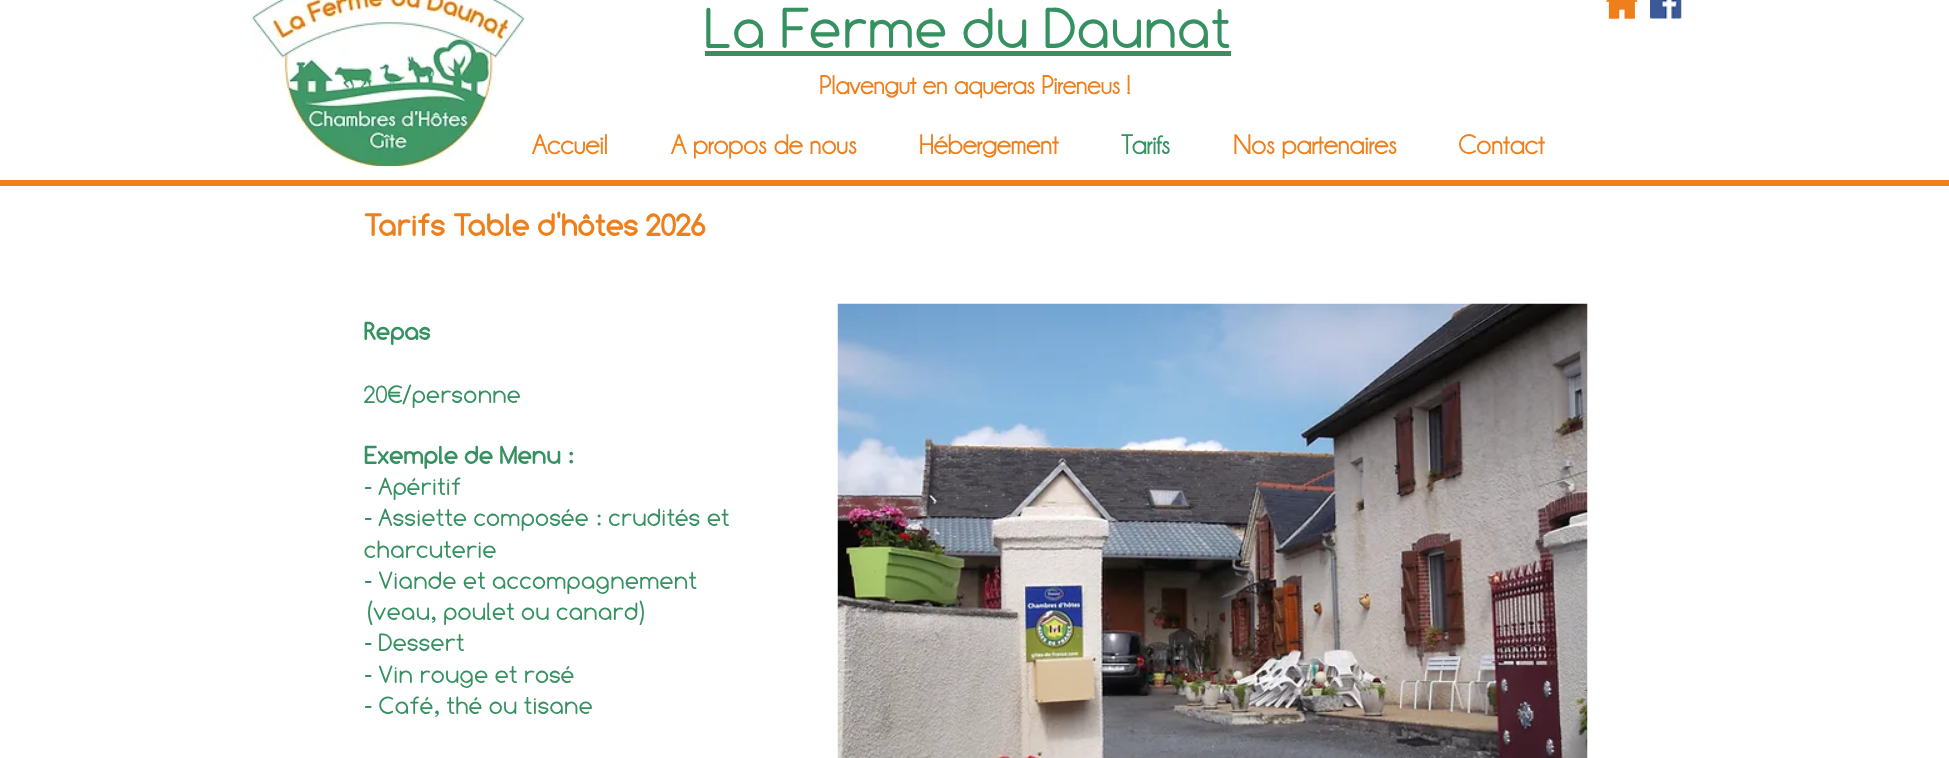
<svg xmlns="http://www.w3.org/2000/svg" width="1949" height="758" viewBox="0 0 1949 758">
  <style>
    .t1 { font: 57.5px Comfortaa; fill: #369161; }
    .t2 { font: bold 26.25px 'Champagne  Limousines'; fill: #ef7f1a; }
    .t3 { font: bold 27.5px 'Champagne  Limousines'; fill: #ef7f1a; }
    .t4 { font: bold 27.5px 'Champagne  Limousines'; fill: #369161; }
    .t5 { font: bold 31.25px Comfortaa; fill: #ef7f1a; }
    .t6 { font: bold 25px Comfortaa; fill: #369161; }
    .t7 { font: 25px Comfortaa; fill: #369161; }
  </style>
  <rect width="100%" height="100%" fill="#fff"/>
  <image x="252" y="0" width="273" height="166" href="images/1.png"/>
  <text x="705" y="48" class="t1">La Ferme du Daunat</text>
  <rect x="705" y="51" width="526" height="5" fill="#369161"/>
  <image x="1606" y="0" width="32" height="19" href="images/2.png"/>
  <image x="1650" y="0" width="32" height="19" href="images/3.png"/>
  <text x="819" y="94" class="t2">Plavengut en aqueras Pireneus !</text>
  <text x="532" y="154" class="t3">Accueil</text>
  <text x="671" y="154" class="t3">A propos de nous</text>
  <text x="919" y="154" class="t3">Hébergement</text>
  <text x="1121" y="154" class="t4">Tarifs</text>
  <text x="1233" y="154" class="t3">Nos partenaires</text>
  <text x="1458" y="154" class="t3">Contact</text>
  <rect x="0" y="180" width="1949" height="6" fill="#ef7f1a"/>
  <text x="364" y="236" class="t5">Tarifs Table d'hôtes 2026</text>
  <text x="364" y="340" class="t6">Repas</text>
  <text x="364" y="403" class="t7">20€/personne</text>
  <text x="364" y="464" class="t6">Exemple de Menu :</text>
  <text x="364" y="495" class="t7">- Apéritif</text>
  <text x="364" y="526" class="t7">- Assiette composée : crudités et</text>
  <text x="364" y="558" class="t7">charcuterie</text>
  <text x="364" y="589" class="t7">- Viande et accompagnement</text>
  <text x="364" y="620" class="t7">(veau, poulet ou canard)</text>
  <text x="364" y="651" class="t7">- Dessert</text>
  <text x="364" y="683" class="t7">- Vin rouge et rosé</text>
  <text x="364" y="714" class="t7">- Café, thé ou tisane</text>
  <image x="837" y="303" width="751" height="455" href="images/4.png"/>
</svg>
